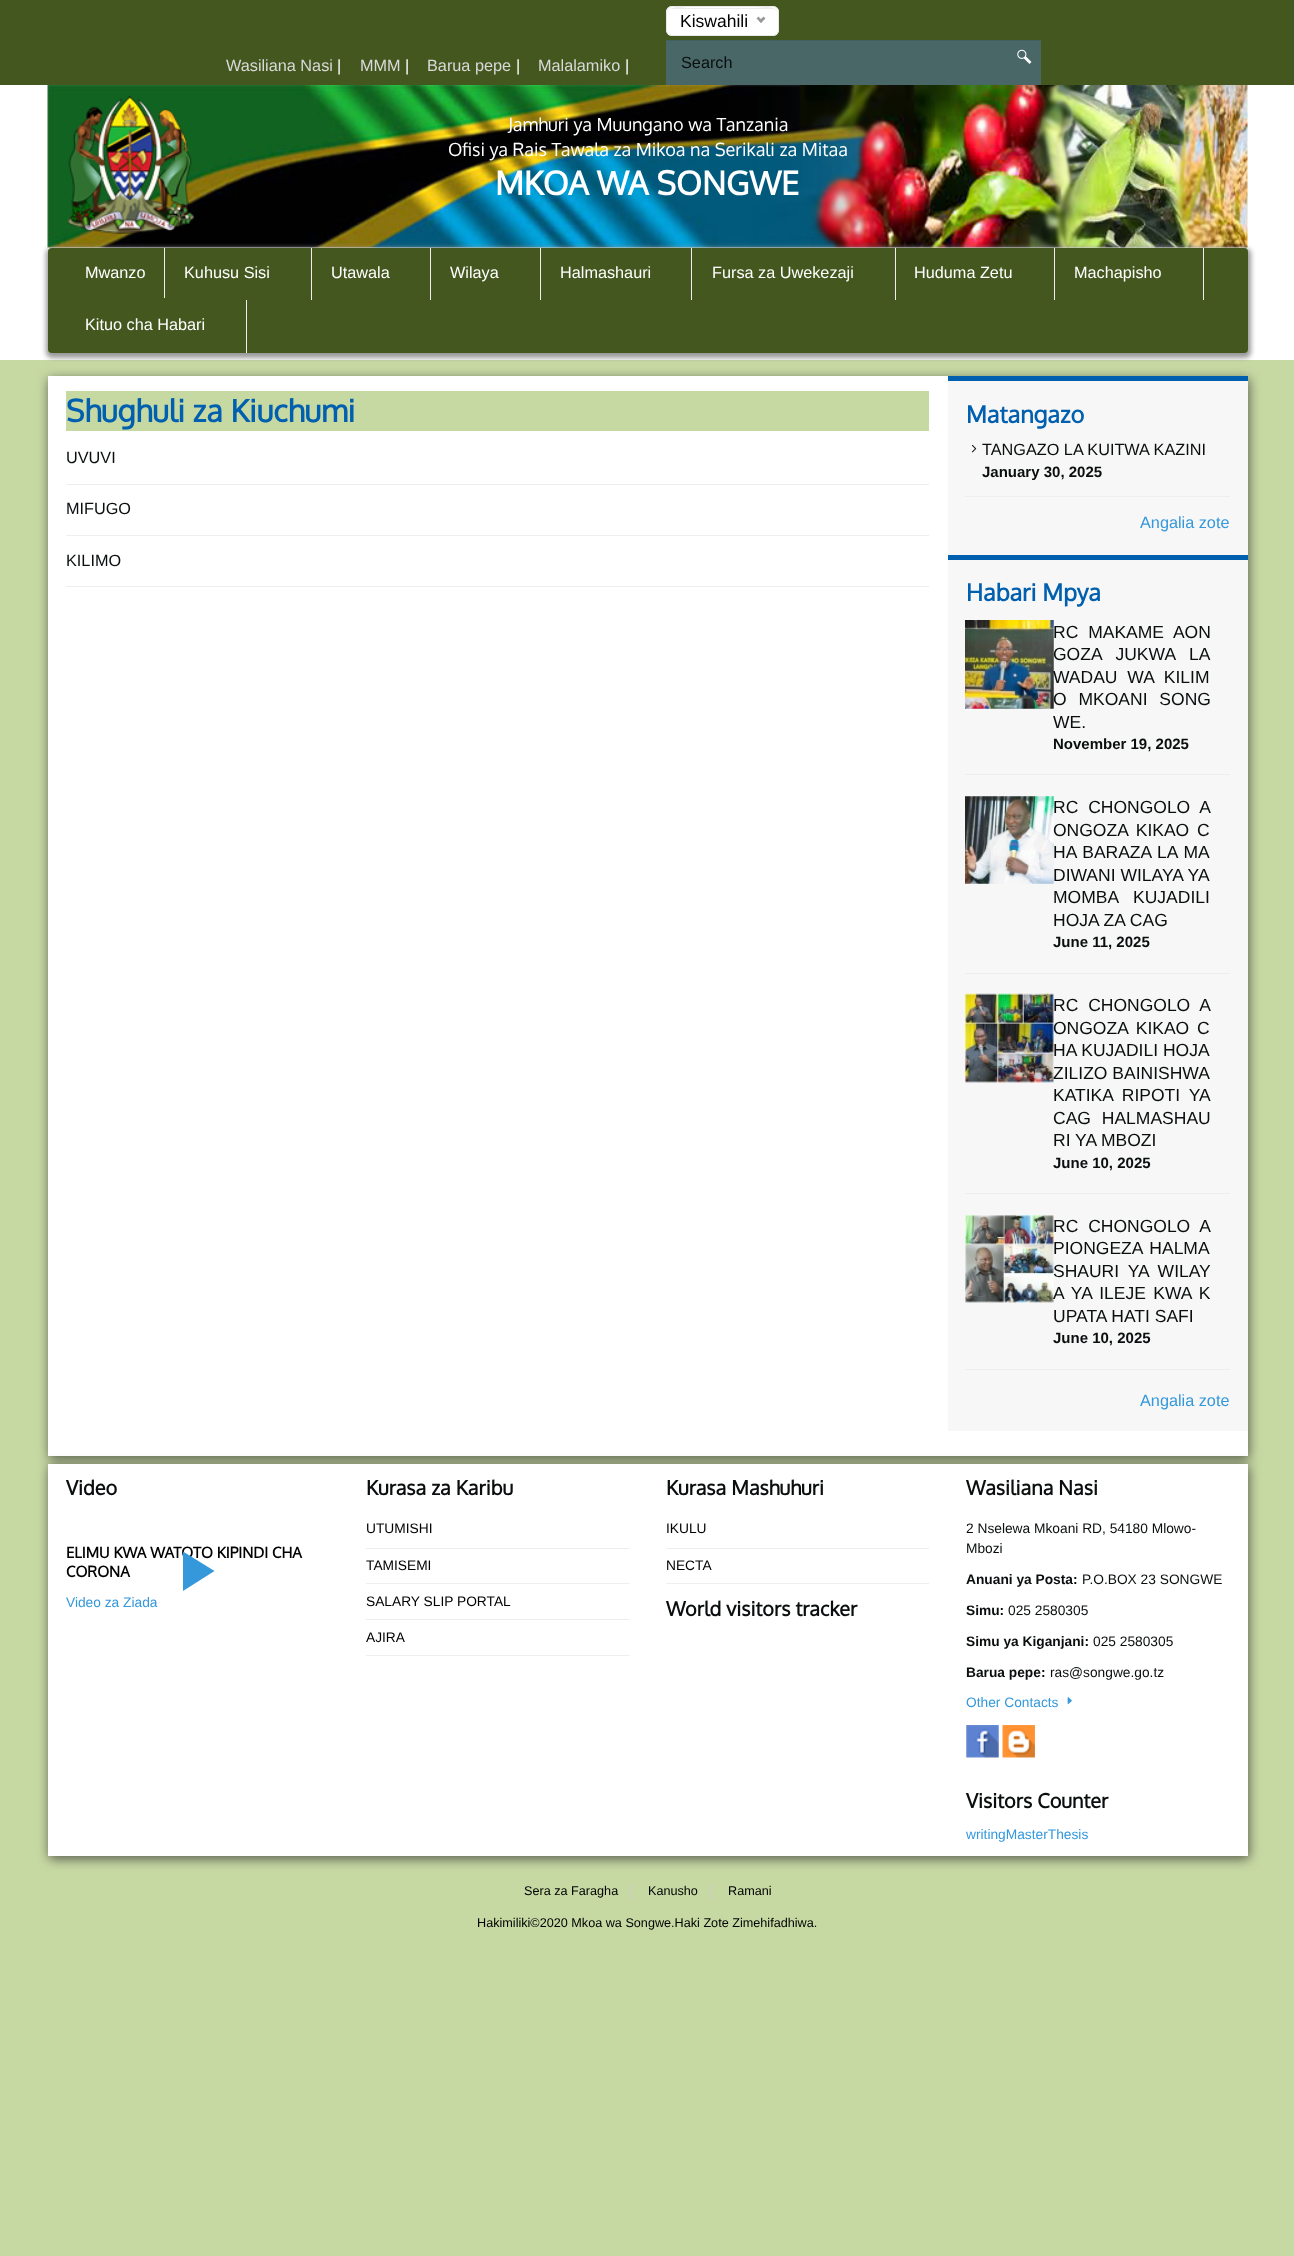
<svg xmlns="http://www.w3.org/2000/svg" width="1294" height="2256" viewBox="0 0 1294 2256">
  <style>
    .t1 { font: 17.5px Liberation Sans; fill: #000; }
    .t2 { font: 16.25px Liberation Sans; fill: #d9d9d9; }
    .t3 { font: 16.25px Liberation Sans; fill: #fff; }
    .t4 { font: 16.25px Liberation Sans; fill: #0a0e0e; }
    .t5 { font: 18.1px Oxygen; fill: #fff; }
    .t6 { font: bold 32.5px Oxygen; fill: #fff; }
    .t7 { font: bold 30.75px Oxygen; fill: #005faf; }
    .t8 { font: bold 23.5px Oxygen; fill: #005faf; }
    .t9 { font: bold 15px Liberation Sans; fill: #0a0e0e; }
    .t10 { font: 16.25px Liberation Sans; fill: #3498db; }
    .t11 { font: 17.5px Liberation Sans; fill: #0a0e0e; }
    .t12 { font: bold 19.9px Oxygen; fill: #0a0e0e; }
    .t13 { font: bold 15px Oxygen; fill: #000; }
    .t14 { font: 13.75px Liberation Sans; fill: #3498db; }
    .t15 { font: 13.75px Liberation Sans; fill: #000; }
    .t16 { font: 13.75px Liberation Sans; fill: #0a0e0e; }
    .t17 { font: bold 13.75px Liberation Sans; fill: #0a0e0e; }
    .t18 { font: 12.65px Liberation Sans; fill: #000; }
  </style>
  <rect width="100%" height="100%" fill="#c7d9a3"/>
  <rect x="0" y="0" width="1294" height="85" fill="#44571f"/>
  <rect x="666" y="6" width="113" height="30" rx="6" fill="#fff"/>
  <path d="M672 9H772C775 9 778 11 778 14C778 4 761 8 756 8H690C685 8 668 4 668 14C668 11 670 9 672 9Z" fill="#ececec"/>
  <rect x="666.5" y="6.5" width="112" height="29" rx="5.5" fill="none" stroke="#e8e8e8"/>
  <text x="680" y="27" class="t1">Kiswahili</text>
  <path d="M763.5 16.5L765.5 18.5L761 23L759 21Z" fill="#999"/>
  <path d="M758.5 16.5L762.5 21L761 23L756.5 18.5Z" fill="#999"/>
  <text x="226" y="71" class="t2">Wasiliana Nasi</text>
  <text x="337" y="71" class="t3">|</text>
  <text x="360" y="71" class="t2">MMM</text>
  <text x="405" y="71" class="t3">|</text>
  <text x="427" y="71" class="t2">Barua pepe</text>
  <text x="516" y="71" class="t3">|</text>
  <text x="538" y="71" class="t2">Malalamiko</text>
  <text x="625" y="71" class="t3">|</text>
  <rect x="666" y="41" width="375" height="44" fill="#4a6767"/>
  <rect x="666" y="40" width="375" height="1" fill="#445f5f"/>
  <text x="681" y="68" class="t4">Search</text>
  <image x="1017" y="49" width="15" height="15" href="images/1.png"/>
  <rect x="0" y="85" width="1294" height="275" fill="#fff"/>
  <image x="47" y="85" width="1201" height="163" href="images/2.png"/>
  <image x="67" y="96" width="127" height="138" href="images/3.png"/>
  <text x="508" y="131" class="t5">Jamhuri ya Muungano wa Tanzania</text>
  <text x="448" y="156" class="t5">Ofisi ya Rais Tawala za Mikoa na Serikali za Mitaa</text>
  <text x="495" y="195" class="t6">MKOA WA SONGWE</text>
  <rect x="46" y="248" width="1205" height="110" rx="6" fill="#999" filter="blur(2.5px)"/>
  <rect x="48" y="248" width="1200" height="105" rx="4" fill="#44571f"/>
  <rect x="164" y="248" width="1" height="50" fill="#eee"/>
  <text x="85" y="278" class="t3">Mwanzo</text>
  <rect x="311" y="248" width="1" height="52" fill="#eee"/>
  <text x="184" y="278" class="t3">Kuhusu Sisi</text>
  <rect x="430" y="248" width="1" height="52" fill="#eee"/>
  <text x="331" y="278" class="t3">Utawala</text>
  <rect x="540" y="248" width="1" height="52" fill="#eee"/>
  <text x="450" y="278" class="t3">Wilaya</text>
  <rect x="691" y="248" width="1" height="52" fill="#eee"/>
  <text x="560" y="278" class="t3">Halmashauri</text>
  <rect x="895" y="248" width="1" height="52" fill="#eee"/>
  <text x="712" y="278" class="t3">Fursa za Uwekezaji</text>
  <rect x="1054" y="248" width="1" height="52" fill="#eee"/>
  <text x="914" y="278" class="t3">Huduma Zetu</text>
  <rect x="1203" y="248" width="1" height="52" fill="#eee"/>
  <text x="1074" y="278" class="t3">Machapisho</text>
  <rect x="246" y="300" width="1" height="53" fill="#eee"/>
  <text x="85" y="330" class="t3">Kituo cha Habari</text>
  <rect x="49" y="379" width="1200" height="1080" fill="#323232bf" filter="blur(6px)"/>
  <rect x="48" y="376" width="1200" height="1080" fill="#fff"/>
  <rect x="66" y="391" width="863" height="40" fill="#c7d9a3"/>
  <text x="66" y="422" class="t7">Shughuli za Kiuchumi</text>
  <rect x="66" y="484" width="863" height="1" fill="#eee"/>
  <text x="66" y="463" class="t4">UVUVI</text>
  <rect x="66" y="535" width="863" height="1" fill="#eee"/>
  <text x="66" y="514" class="t4">MIFUGO</text>
  <rect x="66" y="586" width="863" height="1" fill="#eee"/>
  <text x="66" y="566" class="t4">KILIMO</text>
  <rect x="948" y="381" width="300" height="1050" fill="#f7f7f7"/>
  <rect x="948" y="376" width="300" height="5" fill="#005faf"/>
  <text x="966" y="423" class="t8">Matangazo</text>
  <rect x="965" y="496" width="265" height="1" fill="#eee"/>
  <image x="971" y="444" width="6" height="9" href="images/4.png"/>
  <text x="982" y="455" class="t4">TANGAZO LA KUITWA KAZINI</text>
  <text x="982" y="477" class="t9">January 30, 2025</text>
  <text x="1140" y="528" class="t10">Angalia zote</text>
  <rect x="948" y="555" width="300" height="5" fill="#005faf"/>
  <text x="966" y="601" class="t8">Habari Mpya</text>
  <rect x="965" y="774" width="265" height="1" fill="#eee"/>
  <image x="965" y="620" width="89" height="89" href="images/5.png"/>
  <text x="1053" y="638" word-spacing="5" class="t11">RC MAKAME AON</text>
  <text x="1053" y="660" word-spacing="9" class="t11">GOZA JUKWA LA</text>
  <text x="1053" y="683" word-spacing="5" class="t11">WADAU WA KILIM</text>
  <text x="1053" y="705" word-spacing="7" class="t11">O MKOANI SONG</text>
  <text x="1053" y="728" class="t11">WE.</text>
  <text x="1053" y="749" class="t9">November 19, 2025</text>
  <rect x="965" y="973" width="265" height="1" fill="#eee"/>
  <image x="965" y="796" width="89" height="88" href="images/6.png"/>
  <text x="1053" y="813" word-spacing="5" class="t11">RC CHONGOLO A</text>
  <text x="1053" y="836" word-spacing="3" class="t11">ONGOZA KIKAO C</text>
  <text x="1053" y="858" word-spacing="1" class="t11">HA BARAZA LA MA</text>
  <text x="1053" y="881" class="t11">DIWANI WILAYA YA</text>
  <text x="1053" y="903" word-spacing="10" class="t11">MOMBA KUJADILI</text>
  <text x="1053" y="926" class="t11">HOJA ZA CAG</text>
  <text x="1053" y="947" class="t9">June 11, 2025</text>
  <rect x="965" y="1193" width="265" height="1" fill="#eee"/>
  <image x="965" y="993" width="89" height="90" href="images/7.png"/>
  <text x="1053" y="1011" word-spacing="5" class="t11">RC CHONGOLO A</text>
  <text x="1053" y="1034" word-spacing="3" class="t11">ONGOZA KIKAO C</text>
  <text x="1053" y="1056" class="t11">HA KUJADILI HOJA</text>
  <text x="1053" y="1079" class="t11">ZILIZO BAINISHWA</text>
  <text x="1053" y="1101" word-spacing="4" class="t11">KATIKA RIPOTI YA</text>
  <text x="1053" y="1124" word-spacing="6" class="t11">CAG HALMASHAU</text>
  <text x="1053" y="1146" class="t11">RI YA MBOZI</text>
  <text x="1053" y="1168" class="t9">June 10, 2025</text>
  <rect x="965" y="1369" width="265" height="1" fill="#eee"/>
  <image x="965" y="1215" width="89" height="88" href="images/8.png"/>
  <text x="1053" y="1232" word-spacing="5" class="t11">RC CHONGOLO A</text>
  <text x="1053" y="1254" word-spacing="2" class="t11">PIONGEZA HALMA</text>
  <text x="1053" y="1277" word-spacing="4" class="t11">SHAURI YA WILAY</text>
  <text x="1053" y="1299" word-spacing="2.5" class="t11">A YA ILEJE KWA K</text>
  <text x="1053" y="1322" class="t11">UPATA HATI SAFI</text>
  <text x="1053" y="1343" class="t9">June 10, 2025</text>
  <text x="1140" y="1406" class="t10">Angalia zote</text>
  <rect x="49" y="1466" width="1200" height="393" fill="#323232bf" filter="blur(6px)"/>
  <rect x="48" y="1464" width="1200" height="392" fill="#fff"/>
  <text x="66" y="1495" class="t12">Video</text>
  <text x="66" y="1558" class="t13">ELIMU KWA WATOTO KIPINDI CHA</text>
  <text x="66" y="1577" class="t13">CORONA</text>
  <path d="M183 1551.5V1591L214.5 1571Z" fill="#3498db"/>
  <text x="66" y="1607" class="t14">Video za Ziada</text>
  <text x="366" y="1495" class="t12">Kurasa za Karibu</text>
  <rect x="366" y="1548" width="263" height="1" fill="#eee"/>
  <text x="366" y="1533" class="t15">UTUMISHI</text>
  <rect x="366" y="1583" width="263" height="1" fill="#eee"/>
  <text x="366" y="1570" class="t15">TAMISEMI</text>
  <rect x="366" y="1619" width="263" height="1" fill="#eee"/>
  <text x="366" y="1606" class="t15">SALARY SLIP PORTAL</text>
  <rect x="366" y="1655" width="263" height="1" fill="#eee"/>
  <text x="366" y="1642" class="t15">AJIRA</text>
  <text x="666" y="1495" class="t12">Kurasa Mashuhuri</text>
  <rect x="666" y="1548" width="263" height="1" fill="#eee"/>
  <text x="666" y="1533" class="t15">IKULU</text>
  <rect x="666" y="1583" width="263" height="1" fill="#eee"/>
  <text x="666" y="1570" class="t15">NECTA</text>
  <text x="666" y="1616" class="t12">World visitors tracker</text>
  <text x="966" y="1495" class="t12">Wasiliana Nasi</text>
  <text x="966" y="1533" class="t16">2 Nselewa Mkoani RD, 54180 Mlowo-</text>
  <text x="966" y="1553" class="t16">Mbozi</text>
  <text x="966" y="1584" class="t17">Anuani ya Posta:</text>
  <text x="1082" y="1584" class="t16">P.O.BOX 23 SONGWE</text>
  <text x="966" y="1615" class="t17">Simu:</text>
  <text x="1008" y="1615" class="t16">025 2580305</text>
  <text x="966" y="1646" class="t17">Simu ya Kiganjani:</text>
  <text x="1093" y="1646" class="t16">025 2580305</text>
  <text x="966" y="1677" class="t17">Barua pepe:</text>
  <text x="1050" y="1677" class="t16">ras@songwe.go.tz</text>
  <text x="966" y="1707" class="t14">Other Contacts</text>
  <image x="1067" y="1697" width="5" height="7" href="images/9.png"/>
  <image x="966" y="1725" width="33" height="33" href="images/10.png"/>
  <image x="1002" y="1725" width="33" height="33" href="images/11.png"/>
  <text x="966" y="1808" class="t12">Visitors Counter</text>
  <text x="966" y="1839" class="t14">writingMasterThesis</text>
  <rect x="630" y="1883" width="1" height="17" fill="#ccc"/>
  <text x="524" y="1895" class="t18">Sera za Faragha</text>
  <rect x="710" y="1883" width="1" height="17" fill="#ccc"/>
  <text x="648" y="1895" class="t18">Kanusho</text>
  <text x="728" y="1895" class="t18">Ramani</text>
  <text x="477" y="1927" class="t18">Hakimiliki©2020 Mkoa wa Songwe.Haki Zote Zimehifadhiwa.</text>
</svg>
